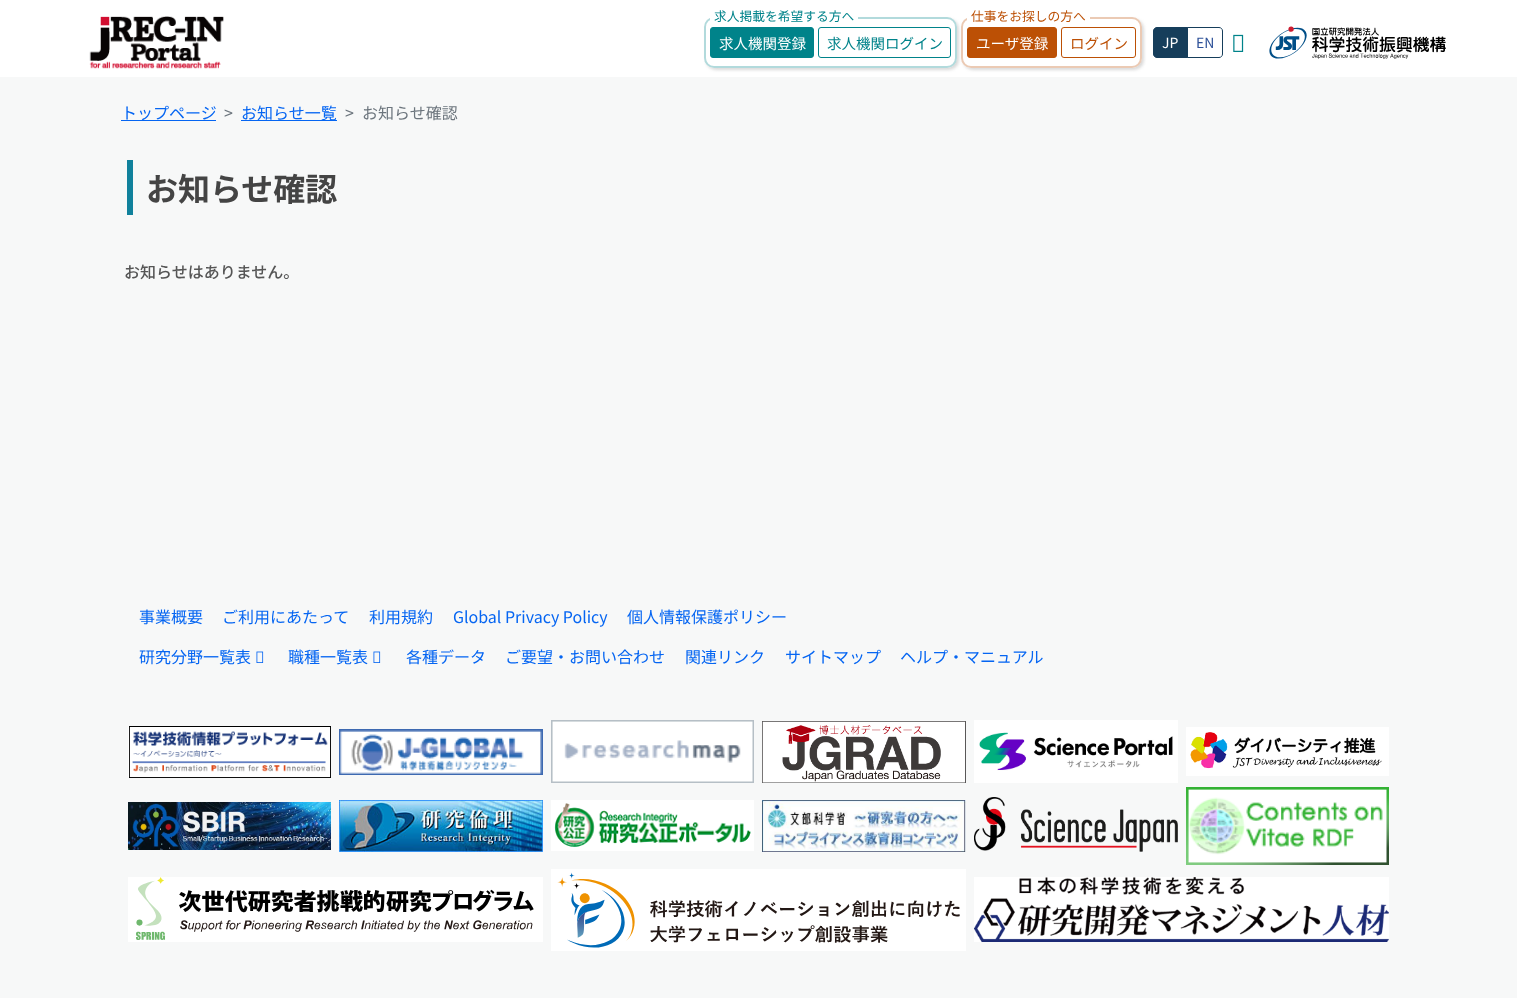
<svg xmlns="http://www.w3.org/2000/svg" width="1517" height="998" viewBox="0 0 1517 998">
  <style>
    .t1 { font: 12.75px Noto Sans JP; fill: #00838a; }
    .t2 { font: 14.5px Noto Sans JP; fill: #fff; }
    .t3 { font: 14.5px Noto Sans JP; fill: #00838a; }
    .t4 { font: 12.75px Noto Sans JP; fill: #bc5005; }
    .t5 { font: 14.5px Noto Sans JP; fill: #bc5005; }
    .t6 { font: 14px Noto Sans JP; fill: #fff; }
    .t7 { font: 14px Noto Sans JP; fill: #2e5299; }
    .t8 { font: 16px Noto Sans JP; fill: #0565f2; }
    .t9 { font: 16px Noto Sans JP; fill: #6c757d; }
    .t10 { font: bold 32px Noto Sans JP; fill: #444; }
    .t11 { font: 500 16px Noto Sans JP; fill: #555; }
  </style>
  <defs>
    <clipPath id="clip1"><path d="M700 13H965V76H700ZM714 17H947C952.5 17 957 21.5 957 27V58C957 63.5 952.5 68 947 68H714C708.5 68 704 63.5 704 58V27C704 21.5 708.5 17 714 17Z" clip-rule="evenodd"/></clipPath>
    <clipPath id="clip2"><path d="M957 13H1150V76H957ZM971 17H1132C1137.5 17 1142 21.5 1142 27V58C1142 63.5 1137.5 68 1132 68H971C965.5 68 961 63.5 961 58V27C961 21.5 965.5 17 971 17Z" clip-rule="evenodd"/></clipPath>
  </defs>
  <rect width="100%" height="100%" fill="#f7f8f8"/>
  <rect x="0" y="0" width="1517" height="77" fill="#fff"/>
  <image x="89" y="16" width="135" height="53" href="images/1.png"/>
  <g clip-path="url(#clip1)">
    <rect x="706" y="19" width="253" height="51" rx="10" fill="#aaaaaa70" filter="blur(1.5px)"/>
  </g>
  <rect x="705" y="18" width="251" height="49" rx="9" fill="none" stroke="#00838a4d" stroke-width="2"/>
  <rect x="710" y="17" width="148" height="3" fill="#fff"/>
  <text x="714" y="21" class="t1">求人掲載を希望する方へ</text>
  <rect x="710.5" y="27.5" width="103" height="30" rx="2.5" fill="#00838a" stroke="#00838a"/>
  <text x="719" y="49" class="t2">求人機関登録</text>
  <rect x="818.5" y="27.5" width="132" height="30" rx="2.5" fill="none" stroke="#00838a"/>
  <text x="827" y="49" class="t3">求人機関ログイン</text>
  <g clip-path="url(#clip2)">
    <rect x="963" y="19" width="181" height="51" rx="10" fill="#aaaaaa70" filter="blur(1.5px)"/>
  </g>
  <rect x="962" y="18" width="179" height="49" rx="9" fill="none" stroke="#bc50054d" stroke-width="2"/>
  <rect x="967" y="17" width="123" height="3" fill="#fff"/>
  <text x="971" y="21" class="t4">仕事をお探しの方へ</text>
  <rect x="967.5" y="27.5" width="89" height="30" rx="2.5" fill="#bc5005" stroke="#bc5005"/>
  <text x="976" y="49" class="t2">ユーザ登録</text>
  <rect x="1061.5" y="27.5" width="74" height="30" rx="2.5" fill="none" stroke="#bc5005"/>
  <text x="1070" y="49" class="t5">ログイン</text>
  <path d="M1187.5 27.5H1219C1221 27.5 1222.5 29 1222.5 31V54C1222.5 56 1221 57.5 1219 57.5H1187.5Z" fill="none" stroke="#163e5b"/>
  <path d="M1157 27.5H1187.5V57.5H1157C1155 57.5 1153.5 56 1153.5 54V31C1153.5 29 1155 27.5 1157 27.5Z" fill="#163e5b" stroke="#163e5b"/>
  <text x="1162" y="48" class="t6">JP</text>
  <text x="1196" y="48" class="t7">EN</text>
  <image x="1233" y="34" width="11" height="18" href="images/2.png"/>
  <image x="1269" y="26" width="177" height="33" href="images/3.png"/>
  <rect x="121" y="120" width="95" height="1" fill="#0565f2"/>
  <text x="121" y="119" class="t8">トップページ</text>
  <text x="224" y="119" class="t9">&gt;</text>
  <rect x="241" y="120" width="96" height="1" fill="#0565f2"/>
  <text x="241" y="119" class="t8">お知らせ一覧</text>
  <text x="345" y="119" class="t9">&gt;</text>
  <text x="362" y="119" class="t9">お知らせ確認</text>
  <rect x="127" y="160" width="6" height="55" fill="#10819c"/>
  <text x="146" y="201" class="t10">お知らせ確認</text>
  <text x="124" y="278" class="t11">お知らせはありません。</text>
  <text x="139" y="623" class="t8">事業概要</text>
  <text x="222" y="623" class="t8">ご利用にあたって</text>
  <text x="369" y="623" class="t8">利用規約</text>
  <text x="453" y="623" class="t8">Global Privacy Policy</text>
  <text x="627" y="623" class="t8">個人情報保護ポリシー</text>
  <text x="139" y="663" class="t8">研究分野一覧表</text>
  <image x="256" y="651" width="8" height="12" href="images/4.png"/>
  <text x="288" y="663" class="t8">職種一覧表</text>
  <image x="373" y="651" width="8" height="12" href="images/4.png"/>
  <text x="406" y="663" class="t8">各種データ</text>
  <text x="505" y="663" class="t8">ご要望・お問い合わせ</text>
  <text x="685" y="663" class="t8">関連リンク</text>
  <text x="785" y="663" class="t8">サイトマップ</text>
  <text x="900" y="663" class="t8">ヘルプ・マニュアル</text>
  <image x="128" y="726" width="203" height="52" href="images/5.png"/>
  <image x="339" y="729" width="204" height="46" href="images/6.png"/>
  <image x="551" y="720" width="203" height="63" href="images/7.png"/>
  <image x="762" y="721" width="204" height="62" href="images/8.png"/>
  <image x="974" y="720" width="204" height="63" href="images/9.png"/>
  <image x="1186" y="727" width="203" height="49" href="images/10.png"/>
  <image x="128" y="802" width="203" height="48" href="images/11.png"/>
  <image x="339" y="800" width="204" height="52" href="images/12.png"/>
  <image x="551" y="800" width="203" height="51" href="images/13.png"/>
  <image x="762" y="800" width="204" height="52" href="images/14.png"/>
  <image x="974" y="797" width="204" height="55" href="images/15.png"/>
  <image x="1186" y="787" width="203" height="78" href="images/16.png"/>
  <rect x="128" y="877" width="415" height="65" fill="#fff"/>
  <image x="136" y="877" width="398" height="63" href="images/17.png"/>
  <rect x="551" y="869" width="415" height="82" fill="#fff"/>
  <image x="557" y="872" width="403" height="76" href="images/18.png"/>
  <rect x="974" y="877" width="415" height="65" fill="#fff"/>
  <image x="974" y="877" width="415" height="65" href="images/19.png"/>
</svg>
